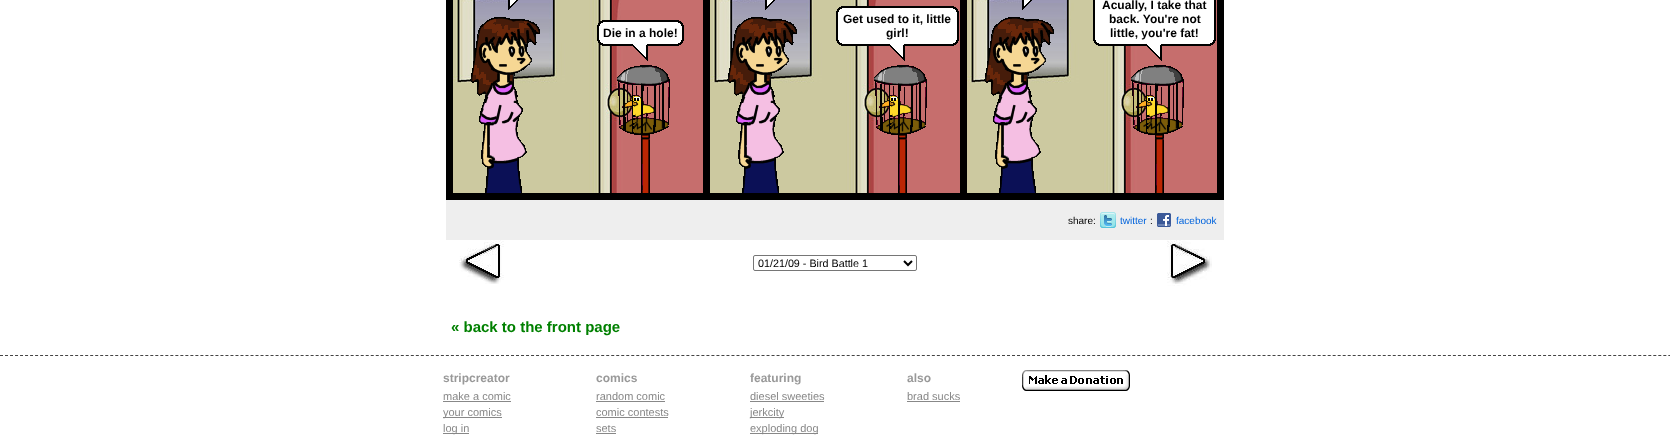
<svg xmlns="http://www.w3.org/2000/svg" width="1670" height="439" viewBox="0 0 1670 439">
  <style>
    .t1 { font: bold 12px Liberation Sans; fill: #000; }
    .t2 { font: 10px Liberation Sans; fill: #000; }
    .t3 { font: 10px Liberation Sans; fill: #0063dc; }
    .t4 { font: 10.75px Liberation Sans; fill: #000; }
    .t5 { font: bold 15px Liberation Sans; fill: #008000; }
    .t6 { font: bold 12px Liberation Sans; fill: #999; }
    .t7 { font: 11px Liberation Sans; fill: #888; }
  </style>
  <rect width="100%" height="100%" fill="#fff"/>
  <rect x="446" y="0" width="778" height="200" fill="#000"/>
  <image x="453" y="0" width="250" height="193" href="images/1.png"/>
  <image x="508" y="0" width="10" height="10" href="images/2.png"/>
  <image x="470" y="17" width="70" height="176" href="images/3.png"/>
  <image x="597" y="20" width="6" height="6" href="images/4.png"/>
  <image x="603" y="20" width="75" height="6" href="images/5.png"/>
  <image x="678" y="20" width="6" height="6" href="images/6.png"/>
  <image x="597" y="26" width="6" height="14" href="images/7.png"/>
  <rect x="603" y="26" width="75" height="14" fill="#fff"/>
  <text x="603" y="37" class="t1">Die in a hole!</text>
  <image x="678" y="26" width="6" height="14" href="images/8.png"/>
  <image x="597" y="40" width="6" height="6" href="images/9.png"/>
  <image x="603" y="40" width="75" height="6" href="images/10.png"/>
  <image x="678" y="40" width="6" height="6" href="images/11.png"/>
  <image x="633" y="44" width="15" height="17" href="images/12.png"/>
  <image x="617" y="65" width="53" height="128" href="images/13.png"/>
  <image x="710" y="0" width="250" height="193" href="images/1.png"/>
  <image x="765" y="0" width="10" height="10" href="images/2.png"/>
  <image x="727" y="17" width="70" height="176" href="images/3.png"/>
  <image x="836" y="6" width="6" height="6" href="images/14.png"/>
  <image x="842" y="6" width="111" height="6" href="images/15.png"/>
  <image x="953" y="6" width="6" height="6" href="images/6.png"/>
  <image x="836" y="12" width="6" height="28" href="images/16.png"/>
  <rect x="842" y="12" width="111" height="28" fill="#fff"/>
  <text x="843" y="23" class="t1">Get used to it, little</text>
  <text x="886" y="37" class="t1">girl!</text>
  <image x="953" y="12" width="6" height="28" href="images/17.png"/>
  <image x="836" y="40" width="6" height="6" href="images/18.png"/>
  <image x="842" y="40" width="111" height="6" href="images/19.png"/>
  <image x="953" y="40" width="6" height="6" href="images/11.png"/>
  <image x="890" y="44" width="15" height="17" href="images/12.png"/>
  <image x="874" y="65" width="53" height="128" href="images/13.png"/>
  <image x="967" y="0" width="250" height="193" href="images/1.png"/>
  <image x="1022" y="0" width="10" height="10" href="images/2.png"/>
  <image x="984" y="17" width="70" height="176" href="images/3.png"/>
  <image x="1093" y="0" width="6" height="40" href="images/20.png"/>
  <rect x="1099" y="0" width="111" height="40" fill="#fff"/>
  <text x="1102" y="9" class="t1">Acually, I take that</text>
  <text x="1109" y="23" class="t1">back. You're not</text>
  <text x="1110" y="37" class="t1">little, you're fat!</text>
  <image x="1210" y="0" width="6" height="40" href="images/21.png"/>
  <image x="1093" y="40" width="6" height="6" href="images/18.png"/>
  <image x="1099" y="40" width="111" height="6" href="images/19.png"/>
  <image x="1210" y="40" width="6" height="6" href="images/11.png"/>
  <image x="1147" y="44" width="15" height="17" href="images/12.png"/>
  <image x="1131" y="65" width="53" height="128" href="images/13.png"/>
  <rect x="446" y="200" width="778" height="40" fill="#eee"/>
  <text x="1068" y="224" class="t2">share:</text>
  <image x="1100" y="212" width="16" height="16" href="images/22.png"/>
  <text x="1120" y="224" class="t3">twitter</text>
  <text x="1150" y="224" class="t2">:</text>
  <image x="1157" y="213" width="14" height="14" href="images/23.png"/>
  <text x="1176" y="224" class="t3">facebook</text>
  <image x="459" y="240" width="45" height="44" href="images/24.png"/>
  <rect x="753.5" y="255.5" width="163" height="15" rx="1.5" fill="none" stroke="#767676"/>
  <path d="M904 261L908 265L912 261" fill="none" stroke="#000" stroke-width="2"/>
  <text x="758" y="267" class="t4">01/21/09 - Bird Battle 1</text>
  <image x="1167" y="240" width="45" height="46" href="images/25.png"/>
  <text x="451" y="332" class="t5">« back to the front page</text>
  <path d="M0 355.5H1670" fill="none" stroke="#444" stroke-dasharray="3 2.01"/>
  <text x="443" y="382" class="t6">stripcreator</text>
  <text x="443" y="400" class="t7">make a comic</text>
  <rect x="443" y="401" width="68" height="1" fill="#888"/>
  <rect x="443" y="417" width="59" height="1" fill="#888"/>
  <text x="443" y="416" class="t7">your comics</text>
  <rect x="443" y="433" width="26" height="1" fill="#888"/>
  <text x="443" y="432" class="t7">log in</text>
  <text x="596" y="382" class="t6">comics</text>
  <text x="596" y="400" class="t7">random comic</text>
  <rect x="596" y="401" width="69" height="1" fill="#888"/>
  <text x="596" y="416" class="t7">comic contests</text>
  <rect x="596" y="417" width="72" height="1" fill="#888"/>
  <text x="596" y="432" class="t7">sets</text>
  <rect x="596" y="433" width="20" height="1" fill="#888"/>
  <text x="750" y="382" class="t6">featuring</text>
  <text x="750" y="400" class="t7">diesel sweeties</text>
  <rect x="750" y="401" width="74" height="1" fill="#888"/>
  <rect x="750" y="417" width="34" height="1" fill="#888"/>
  <text x="750" y="416" class="t7">jerkcity</text>
  <rect x="750" y="433" width="68" height="1" fill="#888"/>
  <text x="750" y="432" class="t7">exploding dog</text>
  <text x="907" y="382" class="t6">also</text>
  <text x="907" y="400" class="t7">brad sucks</text>
  <rect x="907" y="401" width="53" height="1" fill="#888"/>
  <image x="1022" y="370" width="108" height="21" href="images/26.png"/>
</svg>
